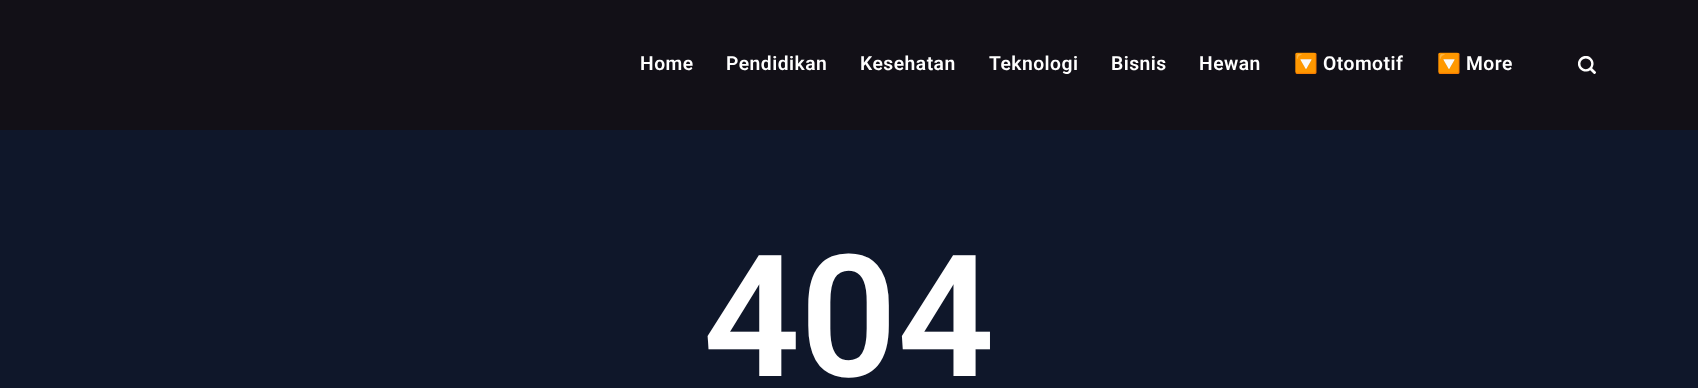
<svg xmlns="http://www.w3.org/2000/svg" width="1698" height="388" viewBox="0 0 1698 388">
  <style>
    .t1 { font: 600 19.25px 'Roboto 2'; letter-spacing: 0.5px; fill: #fff; }
    .t2 { font: bold 19.25px Noto Color Emoji; letter-spacing: 0.5px; fill: #fff; }
    .t3 { font: 600 170px Roboto; fill: #fff; }
  </style>
  <rect width="100%" height="100%" fill="#0f172a"/>
  <rect x="0" y="0" width="1698" height="130" fill="#121017"/>
  <text x="640" y="70" class="t1">Home</text>
  <text x="726" y="70" class="t1">Pendidikan</text>
  <text x="860" y="70" class="t1">Kesehatan</text>
  <text x="989" y="70" class="t1">Teknologi</text>
  <text x="1111" y="70" class="t1">Bisnis</text>
  <text x="1199" y="70" class="t1">Hewan</text>
  <text x="1294" y="70" class="t2">🔽</text>
  <text x="1323" y="70" class="t1">Otomotif</text>
  <text x="1437" y="70" class="t2">🔽</text>
  <text x="1466" y="70" class="t1">More</text>
  <image x="1578" y="56" width="18" height="18" href="images/1.png"/>
  <text x="703" y="376" class="t3">404</text>
</svg>
